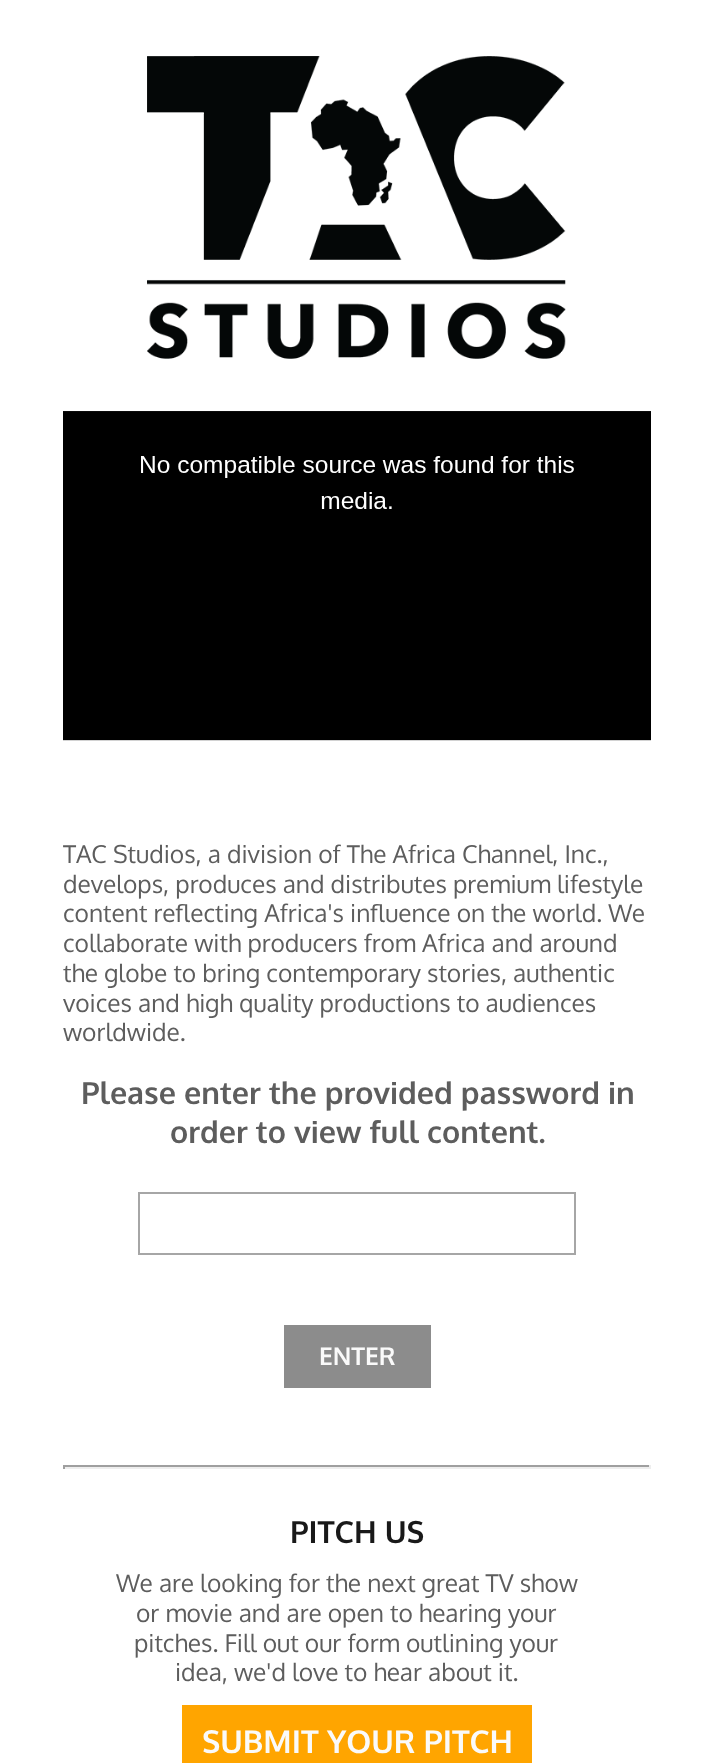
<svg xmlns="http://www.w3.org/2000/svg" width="714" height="1763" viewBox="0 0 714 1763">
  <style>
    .t1 { font: 24.5px Oxygen; fill: #5d5d5d; }
    .t2 { font: bold 30.5px Oxygen; fill: #5d5d5d; }
    .t3 { font: bold 24.5px Oxygen; fill: #fafafa; }
    .t4 { font: bold 30.5px Oxygen; fill: #191919; }
    .t5 { font: bold 31.5px Oxygen; fill: #fafafa; }
  </style>
  <rect width="100%" height="100%" fill="#fff"/>
  <image x="147" y="56" width="419" height="303" href="images/1.png"/>
  <image x="63" y="411" width="588" height="330" href="images/2.png"/>
  <text x="63" y="863" class="t1">TAC Studios, a division of The Africa Channel, Inc.,</text>
  <text x="63" y="893" class="t1">develops, produces and distributes premium lifestyle</text>
  <text x="63" y="922" class="t1">content reflecting Africa's influence on the world. We</text>
  <text x="63" y="952" class="t1">collaborate with producers from Africa and around</text>
  <text x="63" y="982" class="t1">the globe to bring contemporary stories, authentic</text>
  <text x="63" y="1012" class="t1">voices and high quality productions to audiences</text>
  <text x="63" y="1041" class="t1">worldwide.</text>
  <text x="81" y="1104" class="t2">Please enter the provided password in</text>
  <text x="170" y="1143" class="t2">order to view full content.</text>
  <rect x="139" y="1193" width="436" height="61" fill="none" stroke="#a6a6a6" stroke-width="2"/>
  <rect x="284" y="1325" width="147" height="63" fill="#8c8c8c"/>
  <text x="319" y="1365" class="t3">ENTER</text>
  <rect x="63" y="1465" width="588" height="2" fill="#9f9f9f"/>
  <rect x="649" y="1465" width="2" height="4" fill="#eee"/>
  <rect x="63" y="1467" width="588" height="2" fill="#eee"/>
  <rect x="63" y="1465" width="2" height="4" fill="#9f9f9f"/>
  <text x="290" y="1543" class="t4">PITCH US</text>
  <text x="116" y="1592" class="t1">We are looking for the next great TV show</text>
  <text x="136" y="1622" class="t1">or movie and are open to hearing your</text>
  <text x="134" y="1652" class="t1">pitches. Fill out our form outlining your</text>
  <text x="175" y="1681" class="t1">idea, we'd love to hear about it.</text>
  <rect x="182" y="1705" width="350" height="58" fill="#ffa500"/>
  <text x="202" y="1753" class="t5">SUBMIT YOUR PITCH</text>
</svg>
